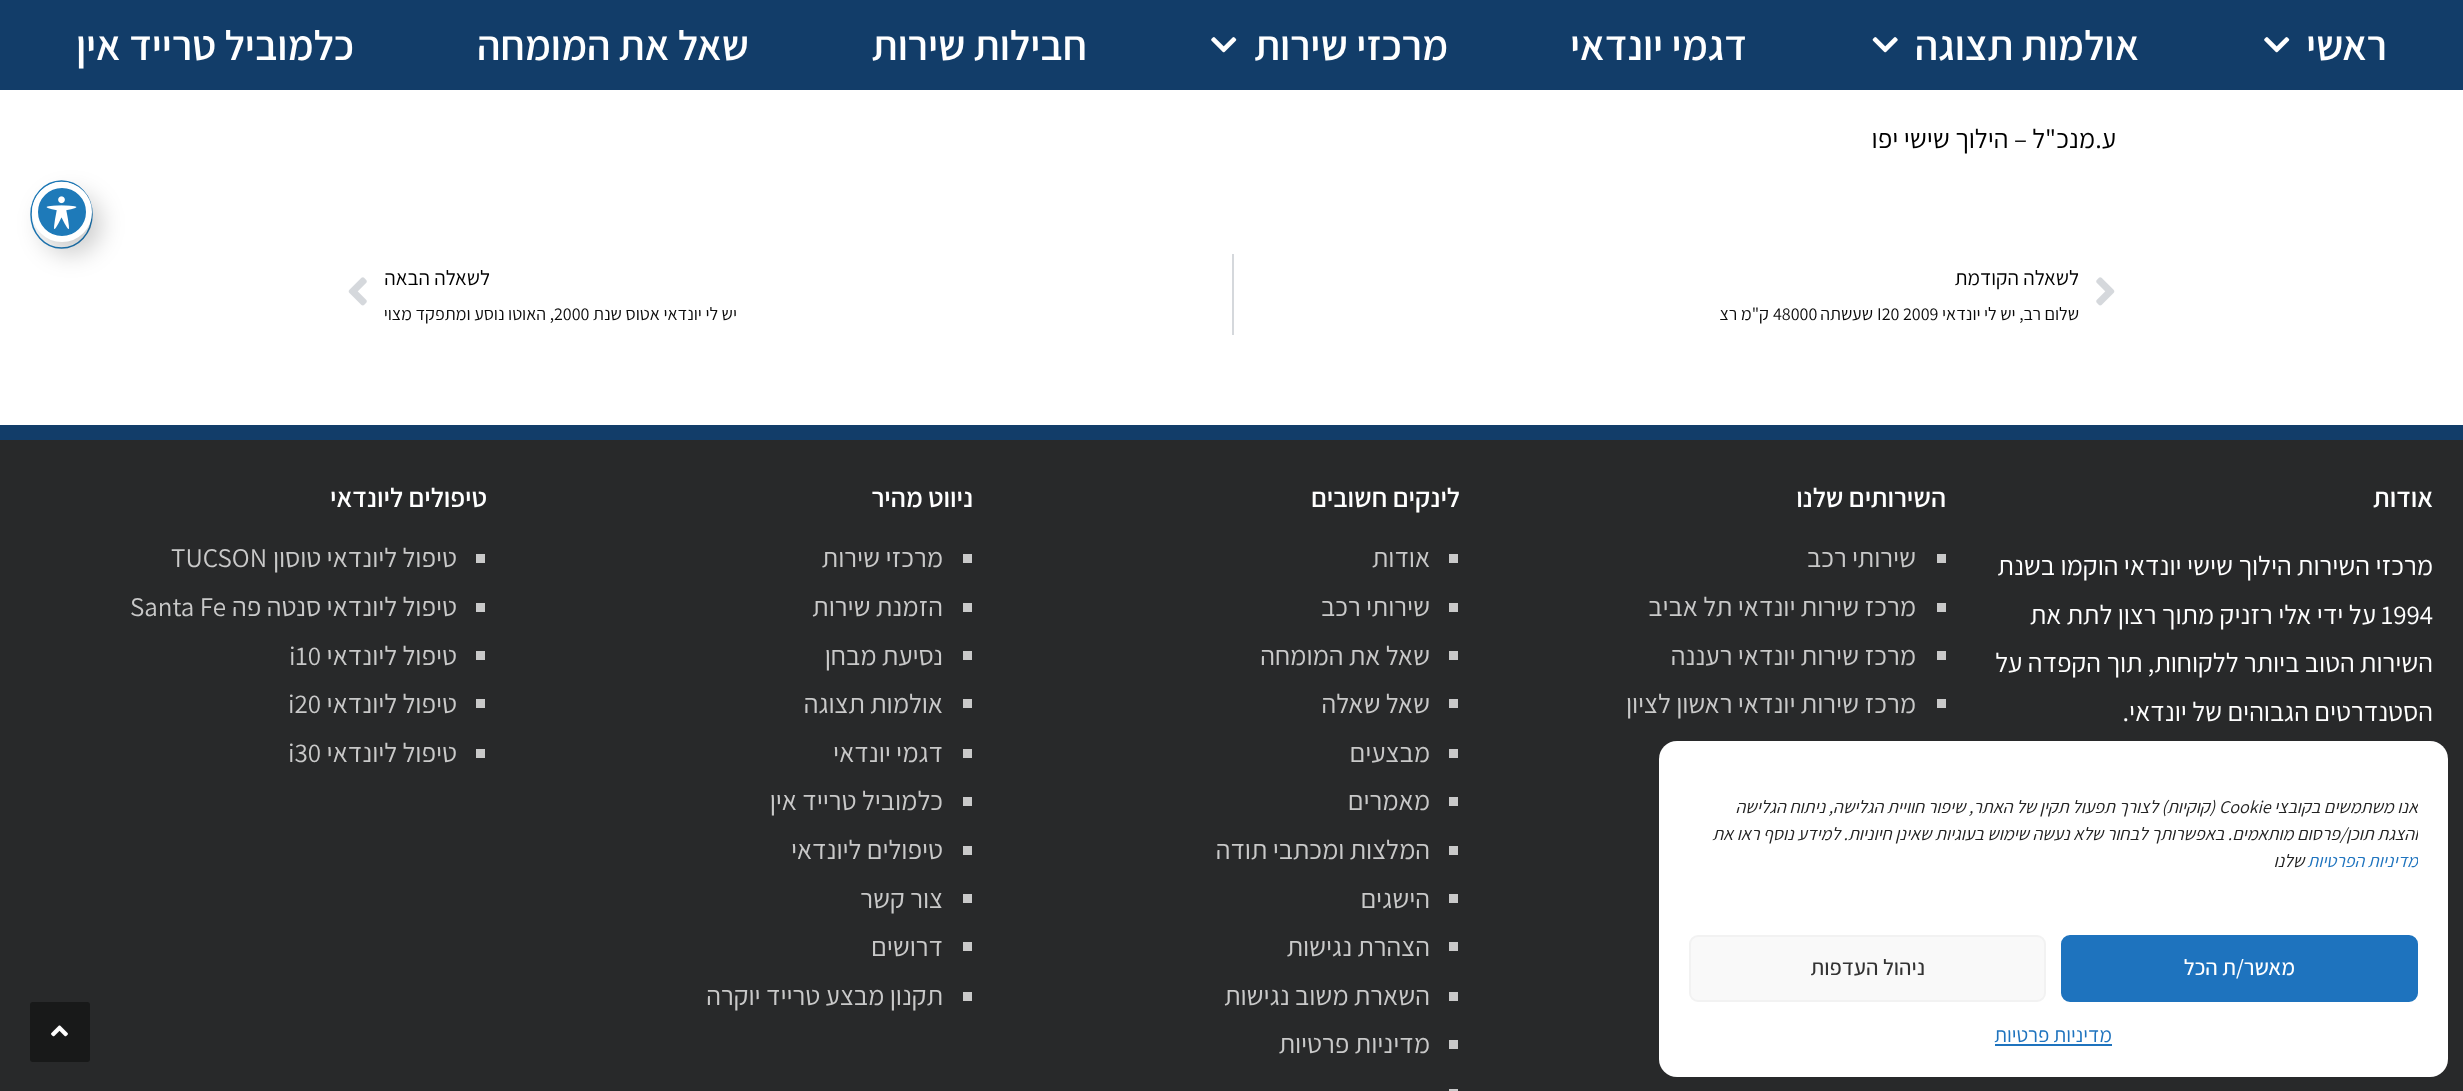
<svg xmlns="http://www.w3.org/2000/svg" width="2463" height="1091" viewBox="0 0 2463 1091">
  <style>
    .t1 { font: 600 42px Assistant; direction: rtl; fill: #fff; }
    .t2 { font: 27px Assistant; direction: rtl; fill: #000; }
    .t3 { font: 21px Assistant; direction: rtl; fill: #000; }
    .t4 { font: 18px Assistant; direction: rtl; fill: #0c0c0c; }
    .t5 { font: 18px Assistant; fill: #0c0c0c; }
    .t6 { font: 600 27px Assistant; direction: rtl; fill: #fff; }
    .t7 { font: 27px Assistant; direction: rtl; fill: #fff; }
    .t8 { font: 27px Assistant; fill: #fff; }
    .t9 { font: 27px Assistant; direction: rtl; fill: #c9c9c9; }
    .t10 { font: 27px Assistant; fill: #c9c9c9; }
    .t11 { font: italic 18px Assistant; direction: rtl; fill: #222; }
    .t12 { font: italic 18px Assistant; fill: #222; }
    .t13 { font: italic 18px Assistant; direction: rtl; fill: #1e73be; }
    .t14 { font: 500 22.5px Assistant; direction: rtl; fill: #fff; }
    .t15 { font: 500 22.5px Assistant; direction: rtl; fill: #333; }
    .t16 { font: 21px Assistant; direction: rtl; fill: #1e73be; }
  </style>
  <defs>
    <clipPath id="clip1"><rect x="1689" y="794" width="729" height="111"/></clipPath>
  </defs>
  <rect width="100%" height="100%" fill="#fff"/>
  <rect x="0" y="0" width="2463" height="90" fill="#123d69"/>
  <text x="2387" y="60" class="t1">ראשי</text>
  <image x="2264" y="37" width="26" height="16" href="images/1.png"/>
  <text x="2139" y="60" class="t1">אולמות תצוגה</text>
  <image x="1872" y="37" width="26" height="16" href="images/2.png"/>
  <text x="1747" y="60" class="t1">דגמי יונדאי</text>
  <text x="1448" y="60" class="t1">מרכזי שירות</text>
  <image x="1211" y="37" width="26" height="16" href="images/1.png"/>
  <text x="1087" y="60" class="t1">חבילות שירות</text>
  <text x="749" y="60" class="t1">שאל את המומחה</text>
  <text x="354" y="60" class="t1">כלמוביל טרייד אין</text>
  <text x="2116" y="148" class="t2">ע.מנכ"ל – הילוך שישי יפו</text>
  <image x="2096" y="277" width="19" height="29" href="images/3.png"/>
  <text x="2079" y="285" class="t3">לשאלה הקודמת</text>
  <text x="2079" y="320" class="t4">שלום רב, יש לי יונדאי</text>
  <text x="1877" y="320" class="t5">I20 2009</text>
  <text x="1873" y="320" class="t4">שעשתה</text>
  <text x="1773" y="320" class="t5">48000</text>
  <text x="1769" y="320" class="t4">ק"מ רצ</text>
  <rect x="1232" y="254" width="2" height="81" fill="#d5d8dc"/>
  <text x="490" y="285" class="t3">לשאלה הבאה</text>
  <text x="737" y="320" class="t4">יש לי יונדאי אטוס שנת</text>
  <text x="554" y="320" class="t5">2000</text>
  <text x="554" y="320" class="t4">, האוטו נוסע ומתפקד מצוי</text>
  <image x="348" y="277" width="19" height="29" href="images/4.png"/>
  <rect x="0" y="440" width="2463" height="651" fill="#28292a"/>
  <rect x="0" y="425" width="2463" height="15" fill="#123d69"/>
  <text x="2433" y="507" class="t6">אודות</text>
  <text x="2433" y="575" class="t7">מרכזי השירות הילוך שישי יונדאי הוקמו בשנת</text>
  <text x="2381" y="624" class="t8">1994</text>
  <text x="2376" y="624" class="t7">על ידי אלי רזניק מתוך רצון לתת את</text>
  <text x="2433" y="672" class="t7">השירות הטוב ביותר ללקוחות, תוך הקפדה על</text>
  <text x="2433" y="721" class="t7">הסטנדרטים הגבוהים של יונדאי.</text>
  <text x="1946" y="507" class="t6">השירותים שלנו</text>
  <rect x="1937" y="554" width="9" height="9" fill="#c9c9c9"/>
  <text x="1916" y="567" class="t9">שירותי רכב</text>
  <rect x="1937" y="603" width="9" height="9" fill="#c9c9c9"/>
  <text x="1916" y="616" class="t9">מרכז שירות יונדאי תל אביב</text>
  <rect x="1937" y="651" width="9" height="9" fill="#c9c9c9"/>
  <text x="1916" y="665" class="t9">מרכז שירות יונדאי רעננה</text>
  <rect x="1937" y="699" width="9" height="9" fill="#c9c9c9"/>
  <text x="1916" y="713" class="t9">מרכז שירות יונדאי ראשון לציון</text>
  <text x="1460" y="507" class="t6">לינקים חשובים</text>
  <rect x="1449" y="554" width="9" height="9" fill="#c9c9c9"/>
  <text x="1430" y="567" class="t9">אודות</text>
  <rect x="1449" y="603" width="9" height="9" fill="#c9c9c9"/>
  <text x="1430" y="616" class="t9">שירותי רכב</text>
  <rect x="1449" y="651" width="9" height="9" fill="#c9c9c9"/>
  <text x="1430" y="665" class="t9">שאל את המומחה</text>
  <rect x="1449" y="699" width="9" height="9" fill="#c9c9c9"/>
  <text x="1430" y="713" class="t9">שאל שאלה</text>
  <rect x="1449" y="749" width="9" height="9" fill="#c9c9c9"/>
  <text x="1430" y="762" class="t9">מבצעים</text>
  <rect x="1449" y="797" width="9" height="9" fill="#c9c9c9"/>
  <text x="1430" y="810" class="t9">מאמרים</text>
  <rect x="1449" y="846" width="9" height="9" fill="#c9c9c9"/>
  <text x="1430" y="859" class="t9">המלצות ומכתבי תודה</text>
  <rect x="1449" y="894" width="9" height="9" fill="#c9c9c9"/>
  <text x="1430" y="908" class="t9">הישגים</text>
  <rect x="1449" y="942" width="9" height="9" fill="#c9c9c9"/>
  <text x="1430" y="956" class="t9">הצהרת נגישות</text>
  <rect x="1449" y="992" width="9" height="9" fill="#c9c9c9"/>
  <text x="1430" y="1005" class="t9">השארת משוב נגישות</text>
  <rect x="1449" y="1040" width="9" height="9" fill="#c9c9c9"/>
  <text x="1430" y="1053" class="t9">מדיניות פרטיות</text>
  <rect x="1449" y="1089" width="9" height="2" fill="#c9c9c9"/>
  <text x="973" y="507" class="t6">ניווט מהיר</text>
  <rect x="963" y="554" width="9" height="9" fill="#c9c9c9"/>
  <text x="943" y="567" class="t9">מרכזי שירות</text>
  <rect x="963" y="603" width="9" height="9" fill="#c9c9c9"/>
  <text x="943" y="616" class="t9">הזמנת שירות</text>
  <rect x="963" y="651" width="9" height="9" fill="#c9c9c9"/>
  <text x="943" y="665" class="t9">נסיעת מבחן</text>
  <rect x="963" y="699" width="9" height="9" fill="#c9c9c9"/>
  <text x="943" y="713" class="t9">אולמות תצוגה</text>
  <rect x="963" y="749" width="9" height="9" fill="#c9c9c9"/>
  <text x="943" y="762" class="t9">דגמי יונדאי</text>
  <rect x="963" y="797" width="9" height="9" fill="#c9c9c9"/>
  <text x="943" y="810" class="t9">כלמוביל טרייד אין</text>
  <rect x="963" y="846" width="9" height="9" fill="#c9c9c9"/>
  <text x="943" y="859" class="t9">טיפולים ליונדאי</text>
  <rect x="963" y="894" width="9" height="9" fill="#c9c9c9"/>
  <text x="943" y="908" class="t9">צור קשר</text>
  <rect x="963" y="942" width="9" height="9" fill="#c9c9c9"/>
  <text x="943" y="956" class="t9">דרושים</text>
  <rect x="963" y="992" width="9" height="9" fill="#c9c9c9"/>
  <text x="943" y="1005" class="t9">תקנון מבצע טרייד יוקרה</text>
  <text x="487" y="507" class="t6">טיפולים ליונדאי</text>
  <rect x="476" y="554" width="9" height="9" fill="#c9c9c9"/>
  <text x="457" y="567" class="t9">טיפול ליונדאי טוסון</text>
  <text x="171" y="567" class="t10">TUCSON</text>
  <rect x="476" y="603" width="9" height="9" fill="#c9c9c9"/>
  <text x="457" y="616" class="t9">טיפול ליונדאי סנטה פה</text>
  <text x="130" y="616" class="t10">Santa Fe</text>
  <rect x="476" y="651" width="9" height="9" fill="#c9c9c9"/>
  <text x="457" y="665" class="t9">טיפול ליונדאי</text>
  <text x="289" y="665" class="t10">i10</text>
  <rect x="476" y="699" width="9" height="9" fill="#c9c9c9"/>
  <text x="457" y="713" class="t9">טיפול ליונדאי</text>
  <text x="288" y="713" class="t10">i20</text>
  <rect x="476" y="749" width="9" height="9" fill="#c9c9c9"/>
  <text x="457" y="762" class="t9">טיפול ליונדאי</text>
  <text x="288" y="762" class="t10">i30</text>
  <path d="M61.5 181C78.5 181 92 196 92 214.5C92 233 78.5 248 61.5 248C44.5 248 31 233 31 214.5C31 196 44.5 181 61.5 181Z" fill="none" stroke="#1e7ab9" stroke-width="1.5"/>
  <rect x="41" y="194" width="60" height="60" rx="30" fill="#00000033" filter="blur(12px)"/>
  <circle cx="62" cy="212" r="27" fill="#1e7ab9" stroke="#fff" stroke-width="6"/>
  <image x="46" y="196" width="31" height="33" href="images/5.png"/>
  <rect x="1659" y="741" width="789" height="336" rx="18" fill="#fff"/>
  <g clip-path="url(#clip1)">
    <text x="2418" y="813" class="t11">אנו משתמשים בקובצי</text>
  </g>
  <text x="2219" y="813" class="t12">Cookie</text>
  <text x="2215" y="813" class="t11">(קוקיות) לצורך תפעול תקין של האתר, שיפור חוויית הגלישה, ניתוח הגלישה</text>
  <g clip-path="url(#clip1)">
    <text x="2418" y="840" class="t11">והצגת תוכן/פרסום מותאמים. באפשרותך לבחור שלא נעשה שימוש בעוגיות שאינן חיוניות. למידע נוסף ראו את</text>
    <text x="2418" y="867" class="t13">מדיניות הפרטיות</text>
  </g>
  <text x="2304" y="867" class="t11">שלנו</text>
  <rect x="2062" y="936" width="355" height="65" rx="8" fill="#1e73be" stroke="#1e73be" stroke-width="2"/>
  <text x="2295" y="975" class="t14">מאשר/ת הכל</text>
  <rect x="1690" y="936" width="355" height="65" rx="8" fill="#f9f9f9" stroke="#f2f2f2" stroke-width="2"/>
  <text x="1925" y="975" class="t15">ניהול העדפות</text>
  <text x="2112" y="1042" class="t16">מדיניות פרטיות</text>
  <rect x="1995" y="1044" width="117" height="2" fill="#1e73be"/>
  <rect x="30" y="1002" width="60" height="60" rx="3" fill="#181919"/>
  <image x="51" y="1025" width="17" height="12" href="images/6.png"/>
</svg>
